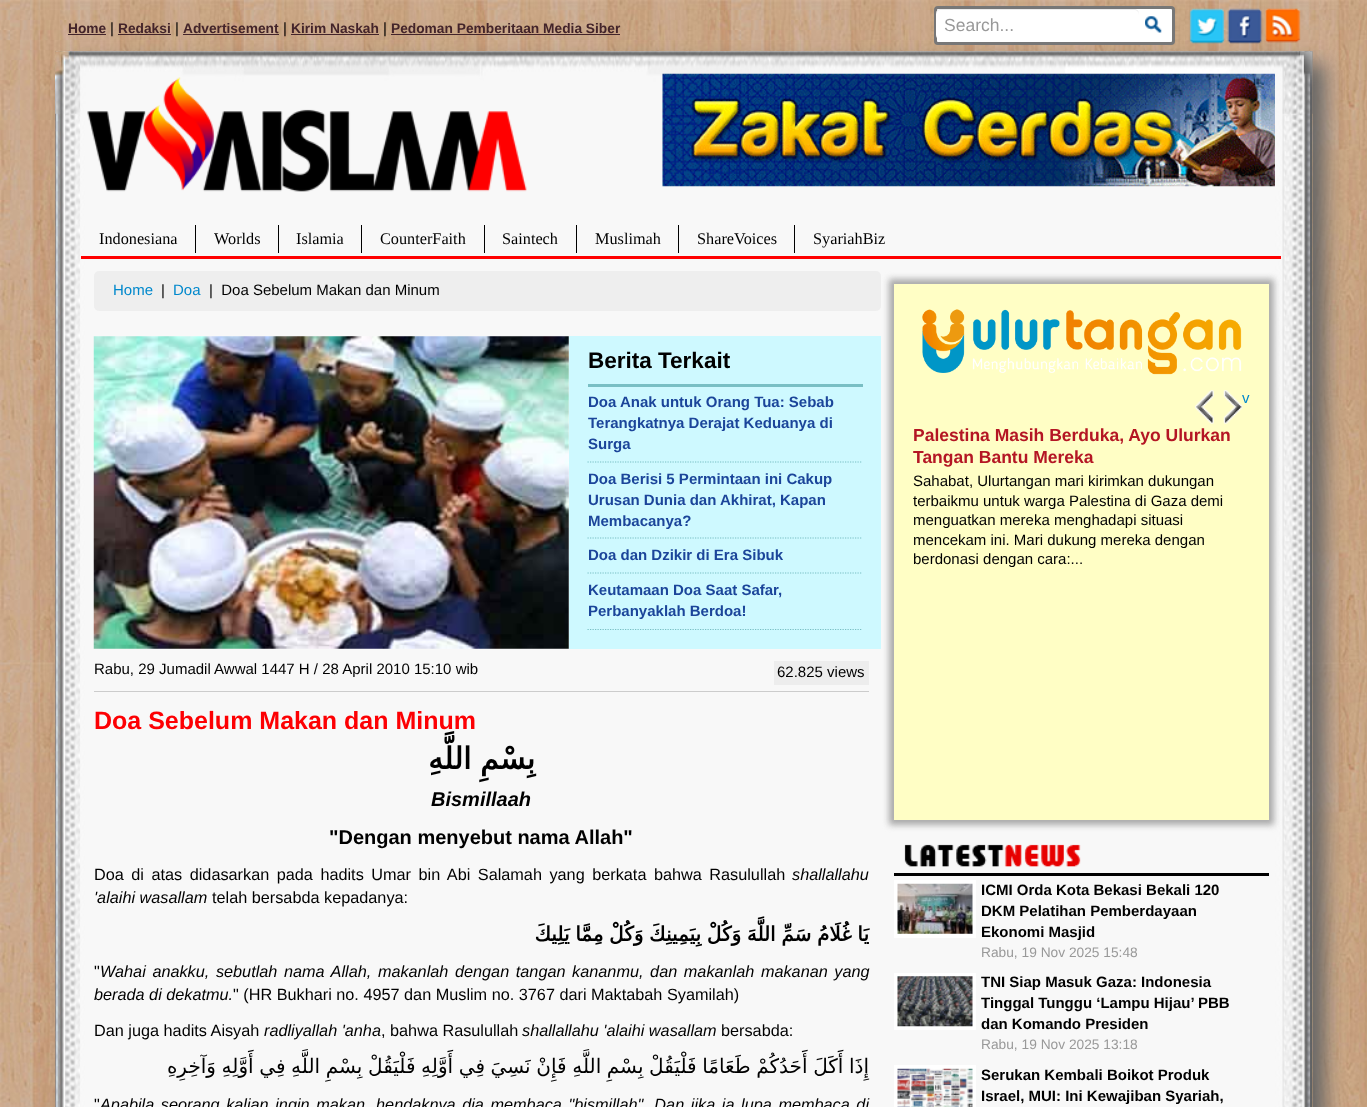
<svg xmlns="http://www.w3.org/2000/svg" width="1367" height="1107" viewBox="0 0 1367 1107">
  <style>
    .t1 { font: bold 13.75px Liberation Sans; fill: #43242a; }
    .t2 { font: 15px Liberation Sans; fill: #000; }
    .t3 { font: 17.5px Liberation Sans; fill: #999; }
    .t4 { font: 16.25px Liberation Serif; fill: #000; }
    .t5 { font: 15px Liberation Sans; fill: #08c; }
    .t6 { font: bold 22.5px Liberation Sans; fill: #000; }
    .t7 { font: bold 15px Liberation Sans; fill: #1b459a; }
    .t8 { font: bold 25px Liberation Sans; fill: #fd0003; }
    .t9 { font: bold 30px DejaVu Sans; direction: rtl; fill: #000; }
    .t10 { font: italic bold 20px Liberation Sans; fill: #000; }
    .t11 { font: bold 20px Liberation Sans; fill: #000; }
    .t12 { font: 16.25px Liberation Sans; fill: #000; }
    .t13 { font: italic 16.25px Liberation Sans; fill: #000; }
    .t14 { font: bold 20px DejaVu Sans; direction: rtl; fill: #000; }
    .t15 { font: 20px DejaVu Sans; direction: rtl; fill: #000; }
    .t16 { font: bold 17.5px Liberation Sans; fill: #b41624; }
    .t17 { font: bold 15px Liberation Sans; fill: #000; }
    .t18 { font: 13.75px Liberation Sans; fill: #999; }
  </style>
  <defs>
    <clipPath id="clip1"><path d="M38 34H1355V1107H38ZM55 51H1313V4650H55Z" clip-rule="evenodd"/></clipPath>
  </defs>
  <rect width="100%" height="100%" fill="#fff"/>
  <image x="0" y="0" width="1367" height="1107" href="images/1.png"/>
  <text x="68" y="33" class="t1">Home</text>
  <image x="55" y="51" width="1258" height="1056" href="images/6.png"/>
  <g clip-path="url(#clip1)">
    <rect x="68" y="64" width="1257" height="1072" fill="#666" filter="blur(9.5px)"/>
  </g>
  <rect x="68" y="34" width="38" height="1" fill="#43242a"/>
  <text x="110" y="33" class="t2">|</text>
  <text x="118" y="33" class="t1">Redaksi</text>
  <rect x="118" y="34" width="53" height="1" fill="#43242a"/>
  <text x="175" y="33" class="t2">|</text>
  <text x="183" y="33" class="t1">Advertisement</text>
  <rect x="183" y="34" width="96" height="1" fill="#43242a"/>
  <text x="283" y="33" class="t2">|</text>
  <text x="291" y="33" class="t1">Kirim Naskah</text>
  <rect x="291" y="34" width="88" height="1" fill="#43242a"/>
  <text x="383" y="33" class="t2">|</text>
  <text x="391" y="33" class="t1">Pedoman Pemberitaan Media Siber</text>
  <rect x="391" y="34" width="229" height="1" fill="#43242a"/>
  <rect x="935.5" y="7.5" width="238" height="36" rx="2.5" fill="#fff" stroke="#777" stroke-width="3"/>
  <rect x="936" y="9" width="203" height="31" rx="5" fill="#fff"/>
  <path d="M941 10H1134C1137 10 1139 12 1139 15V14C1139 11 1137 9 1134 9H941C938 9 936 11 936 14V15C936 12 938 10 941 10Z" fill="#ececec"/>
  <text x="944" y="31" class="t3">Search...</text>
  <image x="1145" y="16" width="17" height="17" href="images/2.png"/>
  <image x="1189" y="8" width="36" height="36" href="images/3.png"/>
  <image x="1227" y="8" width="36" height="36" href="images/4.png"/>
  <image x="1265" y="8" width="36" height="35" href="images/5.png"/>
  <image x="55" y="51" width="1258" height="63" href="images/7.png"/>
  <image x="87" y="77" width="440" height="115" href="images/8.png"/>
  <image x="662" y="73" width="613" height="114" href="images/9.png"/>
  <rect x="81" y="256" width="1200" height="3" fill="#f00"/>
  <rect x="195" y="225" width="1" height="28" fill="#000"/>
  <text x="99" y="244" class="t4">Indonesiana</text>
  <rect x="278" y="225" width="1" height="28" fill="#000"/>
  <text x="214" y="244" class="t4">Worlds</text>
  <rect x="361" y="225" width="1" height="28" fill="#000"/>
  <text x="296" y="244" class="t4">Islamia</text>
  <rect x="484" y="225" width="1" height="28" fill="#000"/>
  <text x="380" y="244" class="t4">CounterFaith</text>
  <rect x="576" y="225" width="1" height="28" fill="#000"/>
  <text x="502" y="244" class="t4">Saintech</text>
  <rect x="678" y="225" width="1" height="28" fill="#000"/>
  <text x="595" y="244" class="t4">Muslimah</text>
  <rect x="794" y="225" width="1" height="28" fill="#000"/>
  <text x="697" y="244" class="t4">ShareVoices</text>
  <text x="813" y="244" class="t4">SyariahBiz</text>
  <rect x="94" y="271" width="787" height="40" rx="5" fill="#eee"/>
  <text x="113" y="295" class="t5">Home</text>
  <text x="161" y="295" class="t2">|</text>
  <text x="173" y="295" class="t5">Doa</text>
  <text x="209" y="295" class="t2" xml:space="preserve">|  Doa Sebelum Makan dan Minum</text>
  <image x="93" y="336" width="476" height="313" href="images/10.png"/>
  <rect x="569" y="336" width="312" height="313" fill="#cef9ff"/>
  <rect x="588" y="384" width="275" height="3" fill="#79bfc4"/>
  <text x="588" y="368" class="t6">Berita Terkait</text>
  <path d="M587.5 462H862.5" fill="none" stroke="#79bfc4" stroke-width="1.2" stroke-dasharray="1.25 1.25"/>
  <text x="588" y="407" class="t7">Doa Anak untuk Orang Tua: Sebab</text>
  <text x="588" y="428" class="t7">Terangkatnya Derajat Keduanya di</text>
  <text x="588" y="449" class="t7">Surga</text>
  <path d="M587.5 538H862.5" fill="none" stroke="#79bfc4" stroke-width="1.2" stroke-dasharray="1.25 1.25"/>
  <text x="588" y="484" class="t7">Doa Berisi 5 Permintaan ini Cakup</text>
  <text x="588" y="505" class="t7">Urusan Dunia dan Akhirat, Kapan</text>
  <text x="588" y="526" class="t7">Membacanya?</text>
  <path d="M587.5 573H862.5" fill="none" stroke="#79bfc4" stroke-width="1.2" stroke-dasharray="1.25 1.25"/>
  <text x="588" y="560" class="t7">Doa dan Dzikir di Era Sibuk</text>
  <path d="M587.5 629.5H862.5" fill="none" stroke="#79bfc4" stroke-width="1.2" stroke-dasharray="1.25 1.25"/>
  <text x="588" y="595" class="t7">Keutamaan Doa Saat Safar,</text>
  <text x="588" y="616" class="t7">Perbanyaklah Berdoa!</text>
  <text x="94" y="674" class="t2">Rabu, 29 Jumadil Awwal 1447 H / 28 April 2010 15:10 wib</text>
  <rect x="774" y="661" width="95" height="24" fill="#ededed"/>
  <text x="777" y="677" class="t2">62.825 views</text>
  <rect x="94" y="691" width="775" height="1" fill="#ccc"/>
  <text x="94" y="729" class="t8">Doa Sebelum Makan dan Minum</text>
  <text x="535" y="769" word-spacing="-1" class="t9">بِسْمِ اللَّهِ</text>
  <text x="431" y="806" class="t10">Bismillaah</text>
  <text x="329" y="844" class="t11">"Dengan menyebut nama Allah"</text>
  <text x="94" y="880" word-spacing="3" class="t12">Doa di atas didasarkan pada hadits Umar bin Abi Salamah yang berkata bahwa Rasulullah</text>
  <text x="792" y="880" class="t13">shallallahu</text>
  <text x="94" y="903" class="t13">'alaihi wasallam</text>
  <text x="212" y="903" class="t12">telah bersabda kepadanya:</text>
  <text x="869" y="941" word-spacing="-0.75" class="t14">يَا غُلَامُ سَمِّ اللَّهَ وَكُلْ بِيَمِينِكَ وَكُلْ مِمَّا يَلِيكَ</text>
  <text x="94" y="977" class="t12">"</text>
  <text x="100" y="977" word-spacing="2.1" class="t13">Wahai anakku, sebutlah nama Allah, makanlah dengan tangan kananmu, dan makanlah makanan yang</text>
  <text x="94" y="1000" class="t13">berada di dekatmu.</text>
  <text x="233" y="1000" class="t12">" (HR Bukhari no. 4957 dan Muslim no. 3767 dari Maktabah Syamilah)</text>
  <text x="94" y="1036" class="t12">Dan juga hadits Aisyah</text>
  <text x="264" y="1036" class="t13">radliyallah 'anha</text>
  <text x="381" y="1036" class="t12">, bahwa Rasulullah</text>
  <text x="522" y="1036" class="t13">shallallahu 'alaihi wasallam</text>
  <text x="721" y="1036" class="t12">bersabda:</text>
  <text x="869" y="1073" word-spacing="-0.75" class="t15">إِذَا أَكَلَ أَحَدُكُمْ طَعَامًا فَلْيَقُلْ بِسْمِ اللَّهِ فَإِنْ نَسِيَ فِي أَوَّلِهِ فَلْيَقُلْ بِسْمِ اللَّهِ فِي أَوَّلِهِ وَآخِرِهِ</text>
  <text x="94" y="1110" class="t12">"</text>
  <text x="100" y="1110" word-spacing="2.1" class="t13">Apabila seorang kalian ingin makan, hendaknya dia membaca "bismillah". Dan jika ia lupa membaca di</text>
  <rect x="889" y="279" width="385" height="546" fill="#aaa" filter="blur(3px)"/>
  <rect x="894" y="284" width="375" height="536" fill="#fffec5"/>
  <image x="922" y="309" width="320" height="66" href="images/11.png"/>
  <text x="1242" y="403" class="t5">v</text>
  <image x="1223" y="390" width="20" height="34" href="images/12.png"/>
  <image x="1195" y="390" width="19" height="34" href="images/13.png"/>
  <text x="913" y="441" class="t16">Palestina Masih Berduka, Ayo Ulurkan</text>
  <text x="913" y="463" class="t16">Tangan Bantu Mereka</text>
  <text x="913" y="486" class="t2">Sahabat, Ulurtangan mari kirimkan dukungan</text>
  <text x="913" y="506" class="t2">terbaikmu untuk warga Palestina di Gaza demi</text>
  <text x="913" y="525" class="t2">menguatkan mereka menghadapi situasi</text>
  <text x="913" y="545" class="t2">mencekam ini. Mari dukung mereka dengan</text>
  <text x="913" y="564" class="t2">berdonasi dengan cara:...</text>
  <image x="904" y="844" width="177" height="23" href="images/14.png"/>
  <rect x="894" y="873" width="375" height="3" fill="#000"/>
  <rect x="894" y="880" width="82" height="58" fill="#fff"/>
  <image x="897" y="883" width="76" height="51" href="images/15.png"/>
  <text x="981" y="895" class="t17">ICMI Orda Kota Bekasi Bekali 120</text>
  <text x="981" y="916" class="t17">DKM Pelatihan Pemberdayaan</text>
  <text x="981" y="937" class="t17">Ekonomi Masjid</text>
  <text x="981" y="957" class="t18">Rabu, 19 Nov 2025 15:48</text>
  <rect x="894" y="973" width="82" height="57" fill="#fff"/>
  <image x="897" y="976" width="76" height="51" href="images/16.png"/>
  <text x="981" y="987" class="t17">TNI Siap Masuk Gaza: Indonesia</text>
  <text x="981" y="1008" class="t17">Tinggal Tunggu ‘Lampu Hijau’ PBB</text>
  <text x="981" y="1029" class="t17">dan Komando Presiden</text>
  <text x="981" y="1049" class="t18">Rabu, 19 Nov 2025 13:18</text>
  <rect x="894" y="1065" width="82" height="42" fill="#fff"/>
  <image x="897" y="1068" width="76" height="39" href="images/17.png"/>
  <text x="981" y="1080" class="t17">Serukan Kembali Boikot Produk</text>
  <text x="981" y="1101" class="t17">Israel, MUI: Ini Kewajiban Syariah,</text>
</svg>
